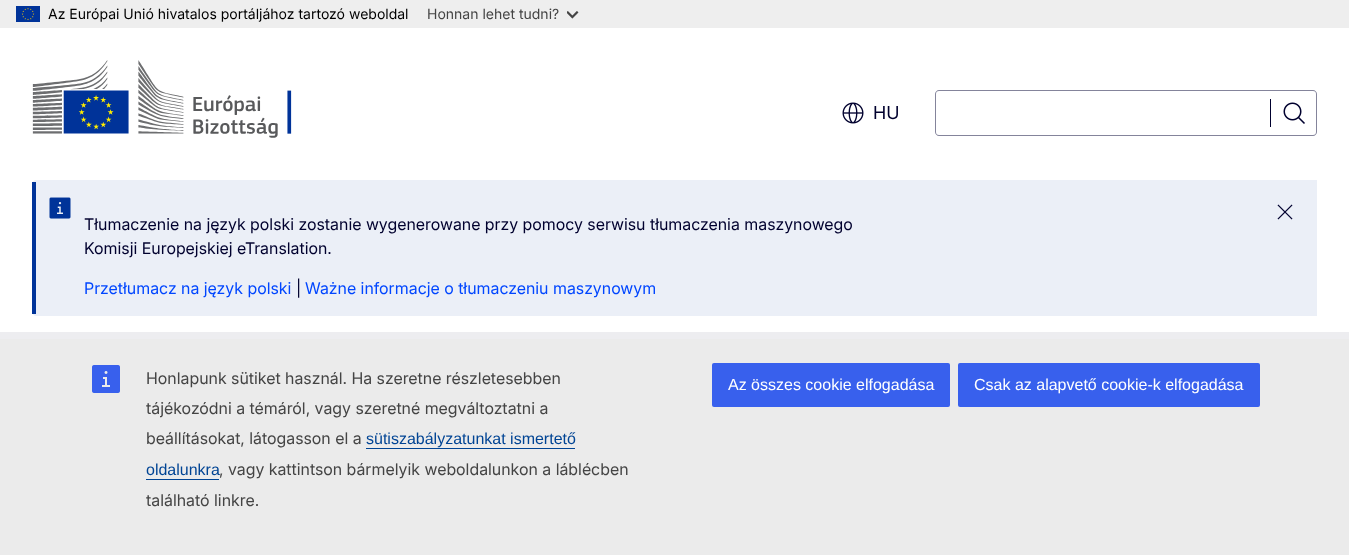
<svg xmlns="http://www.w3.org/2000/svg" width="1349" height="555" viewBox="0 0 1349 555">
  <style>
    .t1 { font: 14px Inter; fill: #000; }
    .t2 { font: 14px Inter; fill: #444; }
    .t3 { font: 18px 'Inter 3'; fill: #00002e; }
    .t4 { font: 16px 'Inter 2'; fill: #00002e; }
    .t5 { font: 16px 'Inter 2'; fill: #0046ff; }
    .t6 { font: 16px 'Inter 2'; fill: #444; }
    .t7 { font: 16px Liberation Sans; fill: #004494; }
    .t8 { font: 16px Liberation Sans; fill: #fff; }
  </style>
  <rect width="100%" height="100%" fill="#fff"/>
  <rect x="0" y="0" width="1349" height="28" fill="#eee"/>
  <image x="16" y="6" width="24" height="16" href="images/1.png"/>
  <text x="48" y="19" class="t1">Az Európai Unió hivatalos portáljához tartozó weboldal</text>
  <text x="427" y="19" class="t2">Honnan lehet tudni?</text>
  <image x="567" y="11" width="12" height="8" href="images/2.png"/>
  <image x="32" y="60" width="260" height="78" href="images/3.png"/>
  <image x="842" y="102" width="22" height="22" href="images/4.png"/>
  <text x="873" y="119" class="t3">HU</text>
  <path d="M939 90H1271V136H939C937 136 935 134 935 132V94C935 92 937 90 939 90ZM939 91H1271V135H939C937 135 936 134 936 132V94C936 92 937 91 939 91Z" fill="#84849b" fill-rule="evenodd"/>
  <path d="M1271 90H1313C1315 90 1317 92 1317 94V132C1317 134 1315 136 1313 136H1271ZM1271 91H1313C1315 91 1316 92 1316 94V132C1316 134 1315 135 1313 135H1271Z" fill="#84849b" fill-rule="evenodd"/>
  <rect x="1270" y="99" width="1" height="28" fill="#00002e"/>
  <image x="1283" y="102" width="22" height="22" href="images/5.png"/>
  <path d="M36 180H1317V316H36C34 316 32 314 32 312V184C32 182 34 180 36 180Z" fill="#ebeff7"/>
  <rect x="32" y="182" width="4" height="132" fill="#039"/>
  <image x="49" y="197" width="22" height="22" href="images/6.png"/>
  <image x="1277" y="204" width="16" height="16" href="images/7.png"/>
  <text x="84" y="230" class="t4">Tłumaczenie na język polski zostanie wygenerowane przy pomocy serwisu tłumaczenia maszynowego</text>
  <text x="84" y="254" class="t4">Komisji Europejskiej eTranslation.</text>
  <text x="84" y="294" class="t5">Przetłumacz na język polski</text>
  <text x="296" y="294" class="t4">|</text>
  <text x="305" y="294" class="t5">Ważne informacje o tłumaczeniu maszynowym</text>
  <rect x="0" y="332" width="1349" height="7" fill="#ededf0"/>
  <rect x="0" y="339" width="1349" height="216" fill="#ebebeb"/>
  <image x="92" y="365" width="28" height="28" href="images/8.png"/>
  <text x="146" y="384" class="t6">Honlapunk sütiket használ. Ha szeretne részletesebben</text>
  <text x="146" y="414" class="t6">tájékozódni a témáról, vagy szeretné megváltoztatni a</text>
  <text x="146" y="444" class="t6">beállításokat, látogasson el a</text>
  <text x="366" y="444" class="t7">sütiszabályzatunkat ismertető</text>
  <rect x="366" y="448" width="209" height="1" fill="#004494"/>
  <text x="146" y="475" class="t7">oldalunkra</text>
  <rect x="146" y="479" width="73" height="1" fill="#004494"/>
  <text x="219" y="475" class="t6">, vagy kattintson bármelyik weboldalunkon a láblécben</text>
  <text x="146" y="506" class="t6">található linkre.</text>
  <rect x="712" y="363" width="238" height="44" rx="2" fill="#3860ed"/>
  <text x="728" y="390" class="t8">Az összes cookie elfogadása</text>
  <rect x="958" y="363" width="302" height="44" rx="2" fill="#3860ed"/>
  <text x="974" y="390" class="t8">Csak az alapvető cookie-k elfogadása</text>
</svg>
